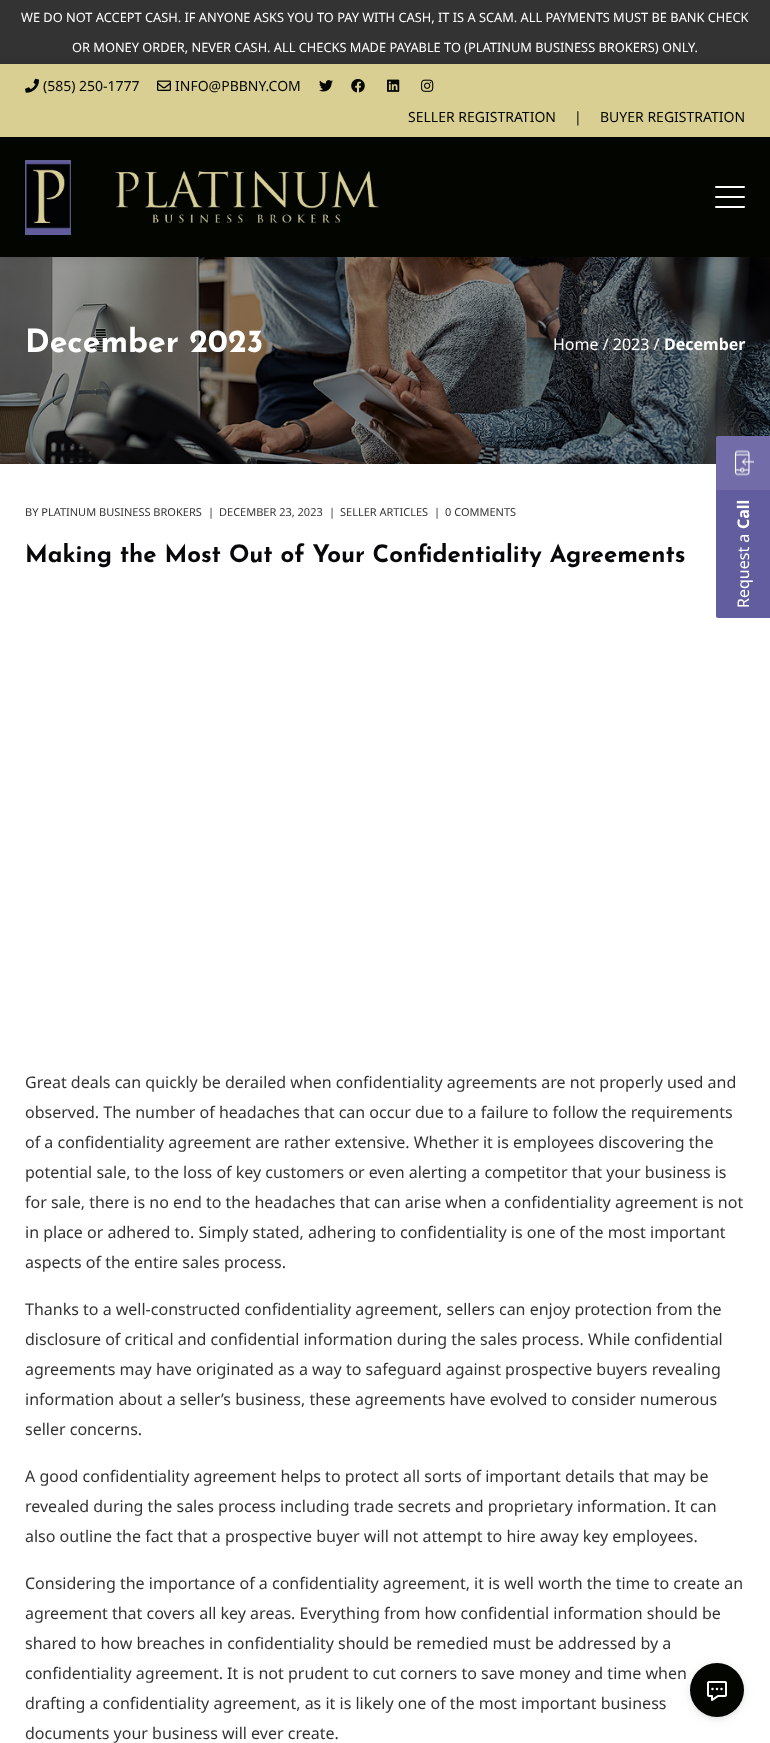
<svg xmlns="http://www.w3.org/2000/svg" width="770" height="1743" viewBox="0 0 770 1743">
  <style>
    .t1 { font: 12.8px Noto Sans; fill: #fff; }
    .t2 { font: 14px Noto Sans; fill: #020500; }
    .t3 { font: 100 32px Josefin Sans; fill: #fff; }
    .t4 { font: 16px Noto Sans; fill: #fff; }
    .t5 { font: bold 16px Noto Sans; fill: #fff; }
    .t6 { font: 11px Noto Sans; fill: #333; }
    .t7 { font: 100 24px Josefin Sans; fill: #070809; }
    .t8 { font: 16px Noto Sans; fill: #333; }
  </style>
  <rect width="100%" height="100%" fill="#fff"/>
  <rect x="0" y="0" width="770" height="64" fill="#333"/>
  <text x="21" y="22" class="t1">WE DO NOT ACCEPT CASH. IF ANYONE ASKS YOU TO PAY WITH CASH, IT IS A SCAM. ALL PAYMENTS MUST BE BANK CHECK</text>
  <text x="72" y="52" class="t1">OR MONEY ORDER, NEVER CASH. ALL CHECKS MADE PAYABLE TO (PLATINUM BUSINESS BROKERS) ONLY.</text>
  <image x="0" y="257" width="770" height="207" href="images/8.png"/>
  <rect x="1" y="64" width="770" height="193" fill="#0000001a" filter="blur(5px)"/>
  <rect x="0" y="137" width="770" height="120" fill="#020500"/>
  <rect x="0" y="64" width="770" height="73" fill="#d9cf92"/>
  <image x="25" y="78" width="14" height="15" href="images/1.png"/>
  <text x="43" y="91" class="t2">(585) 250-1777</text>
  <image x="157" y="80" width="14" height="11" href="images/2.png"/>
  <text x="175" y="91" class="t2">INFO@PBBNY.COM</text>
  <image x="319" y="80" width="14" height="12" href="images/3.png"/>
  <image x="351" y="79" width="14" height="14" href="images/4.png"/>
  <image x="387" y="79" width="13" height="13" href="images/5.png"/>
  <image x="421" y="79" width="13" height="13" href="images/6.png"/>
  <text x="408" y="122" class="t2">SELLER REGISTRATION</text>
  <text x="574" y="122" class="t2">|</text>
  <text x="600" y="122" class="t2">BUYER REGISTRATION</text>
  <image x="25" y="160" width="354" height="75" href="images/7.png"/>
  <rect x="715" y="196" width="30" height="2" rx="1" fill="#fff"/>
  <rect x="715" y="186" width="30" height="2" rx="1" fill="#fff"/>
  <rect x="715" y="206" width="30" height="2" rx="1" fill="#fff"/>
  <text x="25" y="352" class="t3">December 2023</text>
  <text x="553" y="350" class="t4">Home / 2023 /</text>
  <text x="664" y="350" class="t5">December</text>
  <text x="25" y="516" class="t6">BY PLATINUM BUSINESS BROKERS</text>
  <text x="208" y="516" class="t6">|</text>
  <text x="219" y="516" class="t6">DECEMBER 23, 2023</text>
  <text x="329" y="516" class="t6">|</text>
  <text x="340" y="516" class="t6">SELLER ARTICLES</text>
  <text x="434" y="516" class="t6">|</text>
  <text x="445" y="516" class="t6">0 COMMENTS</text>
  <text x="25" y="562" class="t7">Making the Most Out of Your Confidentiality Agreements</text>
  <text x="25" y="1088" class="t8">Great deals can quickly be derailed when confidentiality agreements are not properly used and</text>
  <text x="25" y="1118" class="t8">observed. The number of headaches that can occur due to a failure to follow the requirements</text>
  <text x="25" y="1148" class="t8">of a confidentiality agreement are rather extensive. Whether it is employees discovering the</text>
  <text x="25" y="1178" class="t8">potential sale, to the loss of key customers or even alerting a competitor that your business is</text>
  <text x="25" y="1208" class="t8">for sale, there is no end to the headaches that can arise when a confidentiality agreement is not</text>
  <text x="25" y="1238" class="t8">in place or adhered to. Simply stated, adhering to confidentiality is one of the most important</text>
  <text x="25" y="1268" class="t8">aspects of the entire sales process.</text>
  <text x="25" y="1315" class="t8">Thanks to a well-constructed confidentiality agreement, sellers can enjoy protection from the</text>
  <text x="25" y="1345" class="t8">disclosure of critical and confidential information during the sales process. While confidential</text>
  <text x="25" y="1375" class="t8">agreements may have originated as a way to safeguard against prospective buyers revealing</text>
  <text x="25" y="1405" class="t8">information about a seller’s business, these agreements have evolved to consider numerous</text>
  <text x="25" y="1435" class="t8">seller concerns.</text>
  <text x="25" y="1482" class="t8">A good confidentiality agreement helps to protect all sorts of important details that may be</text>
  <text x="25" y="1512" class="t8">revealed during the sales process including trade secrets and proprietary information. It can</text>
  <text x="25" y="1542" class="t8">also outline the fact that a prospective buyer will not attempt to hire away key employees.</text>
  <text x="25" y="1589" class="t8">Considering the importance of a confidentiality agreement, it is well worth the time to create an</text>
  <text x="25" y="1619" class="t8">agreement that covers all key areas. Everything from how confidential information should be</text>
  <text x="25" y="1649" class="t8">shared to how breaches in confidentiality should be remedied must be addressed by a</text>
  <text x="25" y="1679" class="t8">confidentiality agreement. It is not prudent to cut corners to save money and time when</text>
  <text x="25" y="1709" class="t8">drafting a confidentiality agreement, as it is likely one of the most important business</text>
  <text x="25" y="1739" class="t8">documents your business will ever create.</text>
  <path d="M716 616V438C716 437 717 436 718 436H770V618H718C717 618 716 617 716 616Z" fill="#625d9f"/>
  <rect x="716" y="436" width="54" height="54" fill="#ffffff1a"/>
  <image x="735" y="449" width="19" height="27" href="images/9.png"/>
  <text x="749" y="529" transform="rotate(-90 749 529)" class="t5">Call</text>
  <text x="749" y="608" transform="rotate(-90 749 608)" class="t4">Request a</text>
  <rect x="690" y="1665" width="54" height="54" rx="27" fill="#00000014" filter="blur(2px)"/>
  <rect x="690" y="1665" width="54" height="54" rx="27" fill="#0000000f" filter="blur(6px)"/>
  <circle cx="717" cy="1690" r="27" fill="#020500"/>
  <image x="707" y="1681" width="20" height="20" href="images/10.png"/>
</svg>
